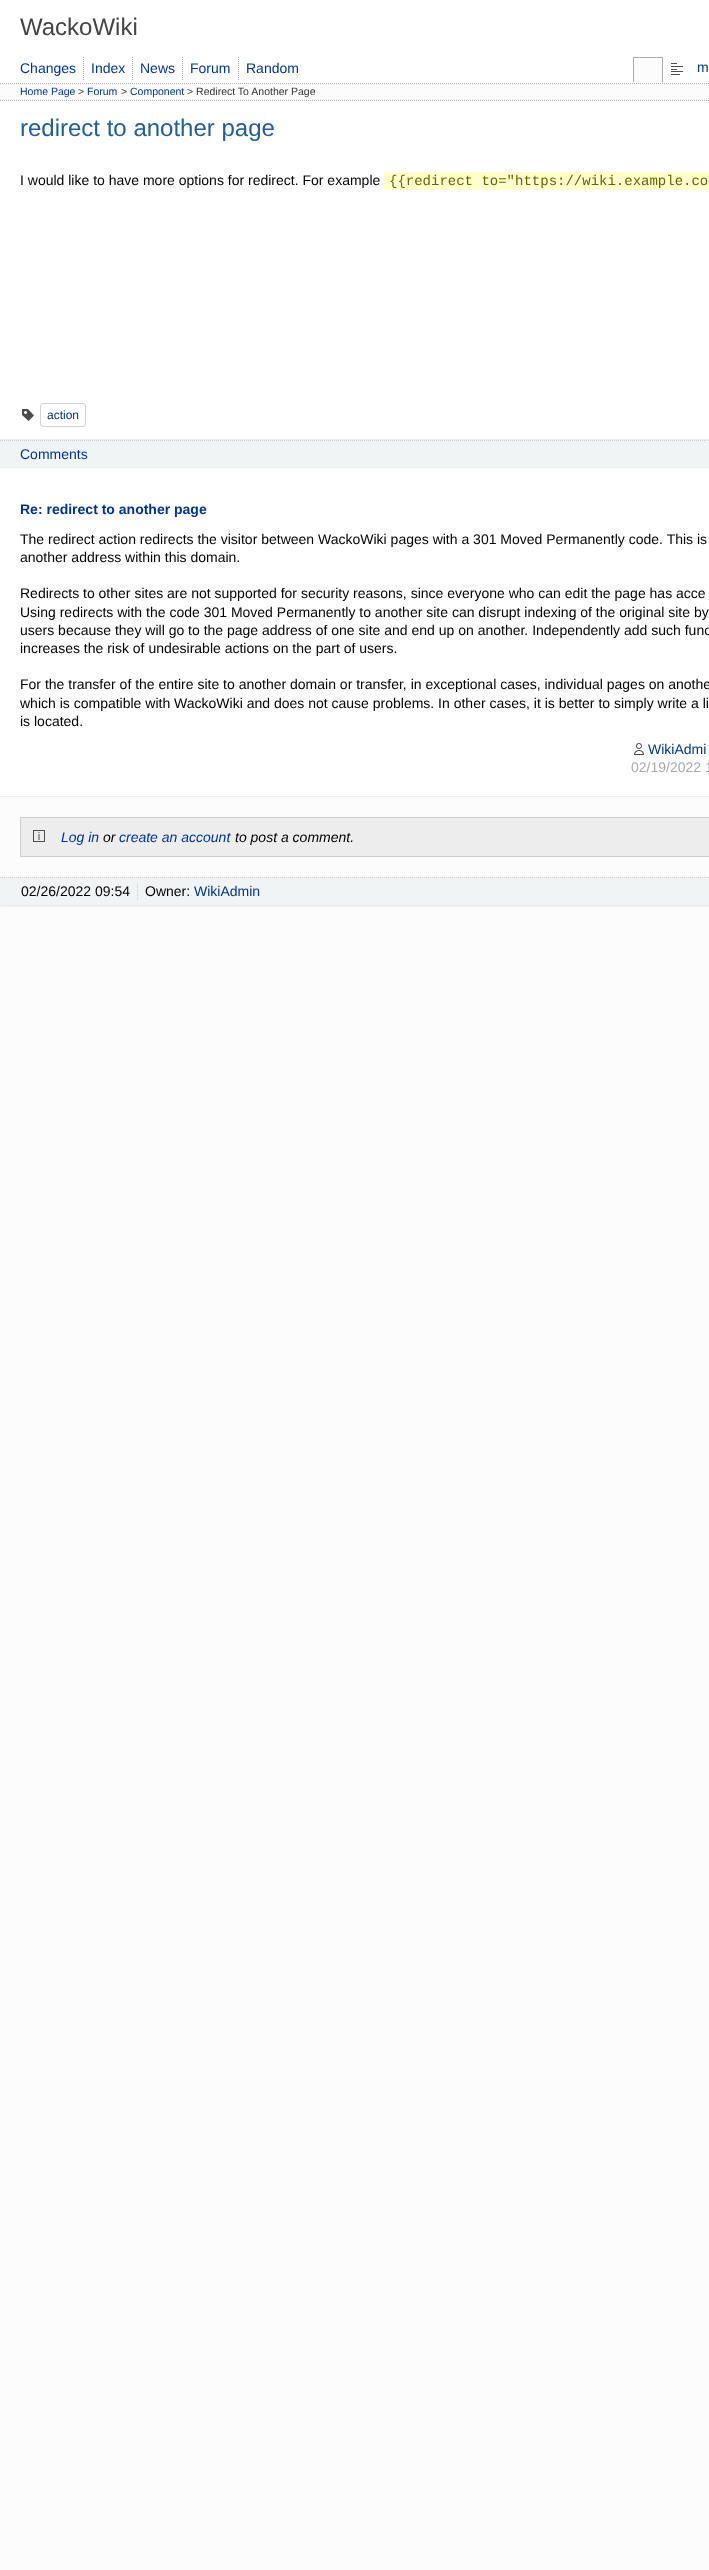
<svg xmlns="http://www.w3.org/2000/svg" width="709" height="2570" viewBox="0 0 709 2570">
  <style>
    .t1 { font: 24px Liberation Sans; fill: #444; }
    .t2 { font: 14px Liberation Sans; fill: #039; }
    .t3 { font: 10.5px Liberation Sans; fill: #039; }
    .t4 { font: 10.5px Liberation Sans; fill: #333; }
    .t5 { font: 24px Liberation Sans; fill: #235e9a; }
    .t6 { font: 14px Liberation Sans; fill: #000; }
    .t7 { font: 14px Liberation Mono; fill: #660; }
    .t8 { font: 12px Liberation Sans; fill: #039; }
    .t9 { font: bold 14px Liberation Sans; fill: #039; }
    .t10 { font: 14px Liberation Sans; fill: #aaa; }
    .t11 { font: italic 14px Liberation Sans; fill: #039; }
    .t12 { font: italic 14px Liberation Sans; fill: #000; }
  </style>
  <rect width="100%" height="100%" fill="#fcfcfc"/>
  <rect x="0" y="0" width="709" height="83" fill="#fff"/>
  <text x="20" y="35" class="t1">WackoWiki</text>
  <text x="20" y="73" class="t2">Changes</text>
  <path d="M83.5 57V80" fill="none" stroke="#aaa" stroke-dasharray="1 1"/>
  <text x="91" y="73" class="t2">Index</text>
  <path d="M132.5 57V80" fill="none" stroke="#aaa" stroke-dasharray="1 1"/>
  <text x="140" y="73" class="t2">News</text>
  <path d="M182.5 57V80" fill="none" stroke="#aaa" stroke-dasharray="1 1"/>
  <text x="190" y="73" class="t2">Forum</text>
  <path d="M238.5 57V80" fill="none" stroke="#aaa" stroke-dasharray="1 1"/>
  <text x="246" y="73" class="t2">Random</text>
  <rect x="634" y="58" width="28" height="24" fill="#fcfcfc"/>
  <rect x="633" y="57" width="30" height="1" fill="#aaa"/>
  <rect x="662" y="57" width="1" height="25" fill="#aaa"/>
  <rect x="633" y="57" width="1" height="25" fill="#aaa"/>
  <image x="671" y="63" width="12" height="12" href="images/1.png"/>
  <text x="697" y="72" class="t2">m</text>
  <path d="M0 83.5H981" fill="none" stroke="#b2b0b0" stroke-dasharray="1 1"/>
  <path d="M0 100.5H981" fill="none" stroke="#b2b0b0" stroke-dasharray="1 1"/>
  <text x="20" y="95" class="t3">Home Page</text>
  <text x="78" y="95" class="t4">&gt;</text>
  <text x="87" y="95" class="t3">Forum</text>
  <text x="121" y="95" class="t4">&gt;</text>
  <text x="130" y="95" class="t3">Component</text>
  <text x="187" y="95" class="t4">&gt; Redirect To Another Page</text>
  <rect x="0" y="101" width="709" height="695" fill="#fff"/>
  <text x="20" y="136" class="t5">redirect to another page</text>
  <text x="20" y="185" class="t6">I would like to have more options for redirect. For example</text>
  <rect x="384" y="172" width="325" height="18" fill="#ffc"/>
  <text x="389" y="185" class="t7">{{redirect to="https://wiki.example.co</text>
  <rect x="0" y="439" width="709" height="1" fill="#eee"/>
  <image x="22" y="409" width="12" height="12" href="images/2.png"/>
  <rect x="40.5" y="403.5" width="45" height="23" rx="2.5" fill="none" stroke="#d3d3d3"/>
  <text x="47" y="419" class="t8">action</text>
  <rect x="0" y="440" width="709" height="27" fill="#f0f4f5"/>
  <path d="M0 440.5H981" fill="none" stroke="#ccc" stroke-dasharray="1 1"/>
  <rect x="0" y="467" width="709" height="1" fill="#eee"/>
  <text x="20" y="459" class="t2">Comments</text>
  <rect x="0" y="796" width="709" height="1" fill="#eee"/>
  <text x="20" y="514" class="t9">Re: redirect to another page</text>
  <text x="20" y="544" class="t6">The redirect action redirects the visitor between WackoWiki pages with a 301 Moved Permanently code. This is</text>
  <text x="20" y="562" class="t6">another address within this domain.</text>
  <text x="20" y="598" class="t6">Redirects to other sites are not supported for security reasons, since everyone who can edit the page has acce</text>
  <text x="20" y="617" class="t6">Using redirects with the code 301 Moved Permanently to another site can disrupt indexing of the original site by</text>
  <text x="20" y="635" class="t6">users because they will go to the page address of one site and end up on another. Independently add such func</text>
  <text x="20" y="653" class="t6">increases the risk of undesirable actions on the part of users.</text>
  <text x="20" y="689" class="t6">For the transfer of the entire site to another domain or transfer, in exceptional cases, individual pages on anothe</text>
  <text x="20" y="708" class="t6">which is compatible with WackoWiki and does not cause problems. In other cases, it is better to simply write a li</text>
  <text x="20" y="726" class="t6">is located.</text>
  <image x="634" y="743" width="10" height="12" href="images/3.png"/>
  <text x="648" y="754" class="t2">WikiAdmi</text>
  <text x="631" y="772" class="t10">02/19/2022 1</text>
  <rect x="20.5" y="817.5" width="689" height="39" fill="#ededed" stroke="#cdcdcd"/>
  <image x="33" y="830" width="12" height="12" href="images/4.png"/>
  <text x="61" y="842" class="t11">Log in</text>
  <text x="103" y="842" class="t12">or</text>
  <text x="119" y="842" class="t11">create an account</text>
  <text x="235" y="842" class="t12">to post a comment.</text>
  <rect x="0" y="878" width="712" height="28" fill="#0000001a" filter="blur(1px)"/>
  <rect x="0" y="877" width="709" height="28" fill="#f0f4f5"/>
  <path d="M0 877.5H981" fill="none" stroke="#ccc" stroke-dasharray="1 1"/>
  <text x="21" y="896" class="t6">02/26/2022 09:54</text>
  <path d="M137.5 883V900" fill="none" stroke="#ccc" stroke-dasharray="1 1"/>
  <text x="145" y="896" class="t6">Owner:</text>
  <text x="194" y="896" class="t2">WikiAdmin</text>
</svg>
